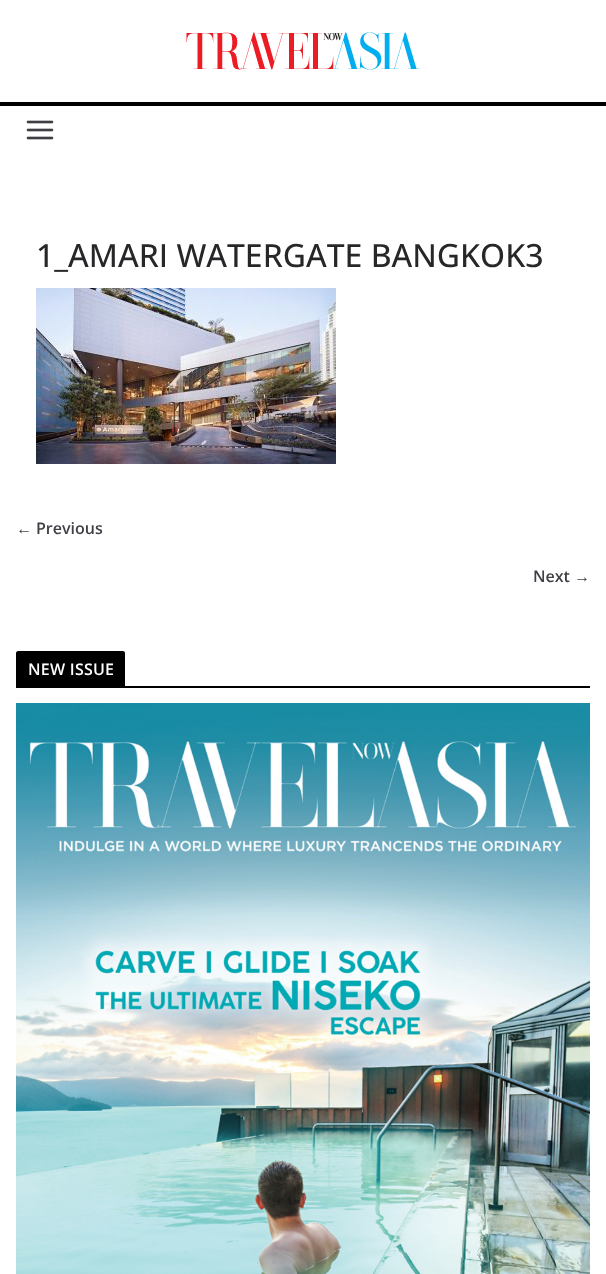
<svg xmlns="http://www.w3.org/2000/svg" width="606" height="1274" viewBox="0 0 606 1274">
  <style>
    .t1 { font: 500 32px Open Sans; fill: #27272a; }
    .t2 { font: bold 16px Liberation Serif; fill: #3f3f46; }
    .t3 { font: 600 16px Open Sans; fill: #3f3f46; }
    .t4 { font: 600 16px Open Sans; letter-spacing: 0.25px; fill: #fff; }
  </style>
  <rect width="100%" height="100%" fill="#fff"/>
  <image x="186" y="32" width="234" height="38" href="images/1.png"/>
  <rect x="0" y="102" width="606" height="4" fill="#000"/>
  <image x="26" y="120" width="28" height="20" href="images/2.png"/>
  <text x="36" y="267" class="t1">1_AMARI WATERGATE BANGKOK3</text>
  <image x="36" y="288" width="300" height="176" href="images/3.png"/>
  <text x="16" y="534" class="t2">←</text>
  <text x="36" y="534" class="t3">Previous</text>
  <text x="533" y="582" class="t3">Next</text>
  <text x="574" y="582" class="t2">→</text>
  <rect x="16" y="686" width="574" height="2" fill="#000"/>
  <path d="M18 651H123C124 651 125 652 125 653V686H16V653C16 652 17 651 18 651Z" fill="#000"/>
  <text x="28" y="675" class="t4">NEW ISSUE</text>
  <image x="16" y="703" width="574" height="571" href="images/4.png"/>
</svg>
